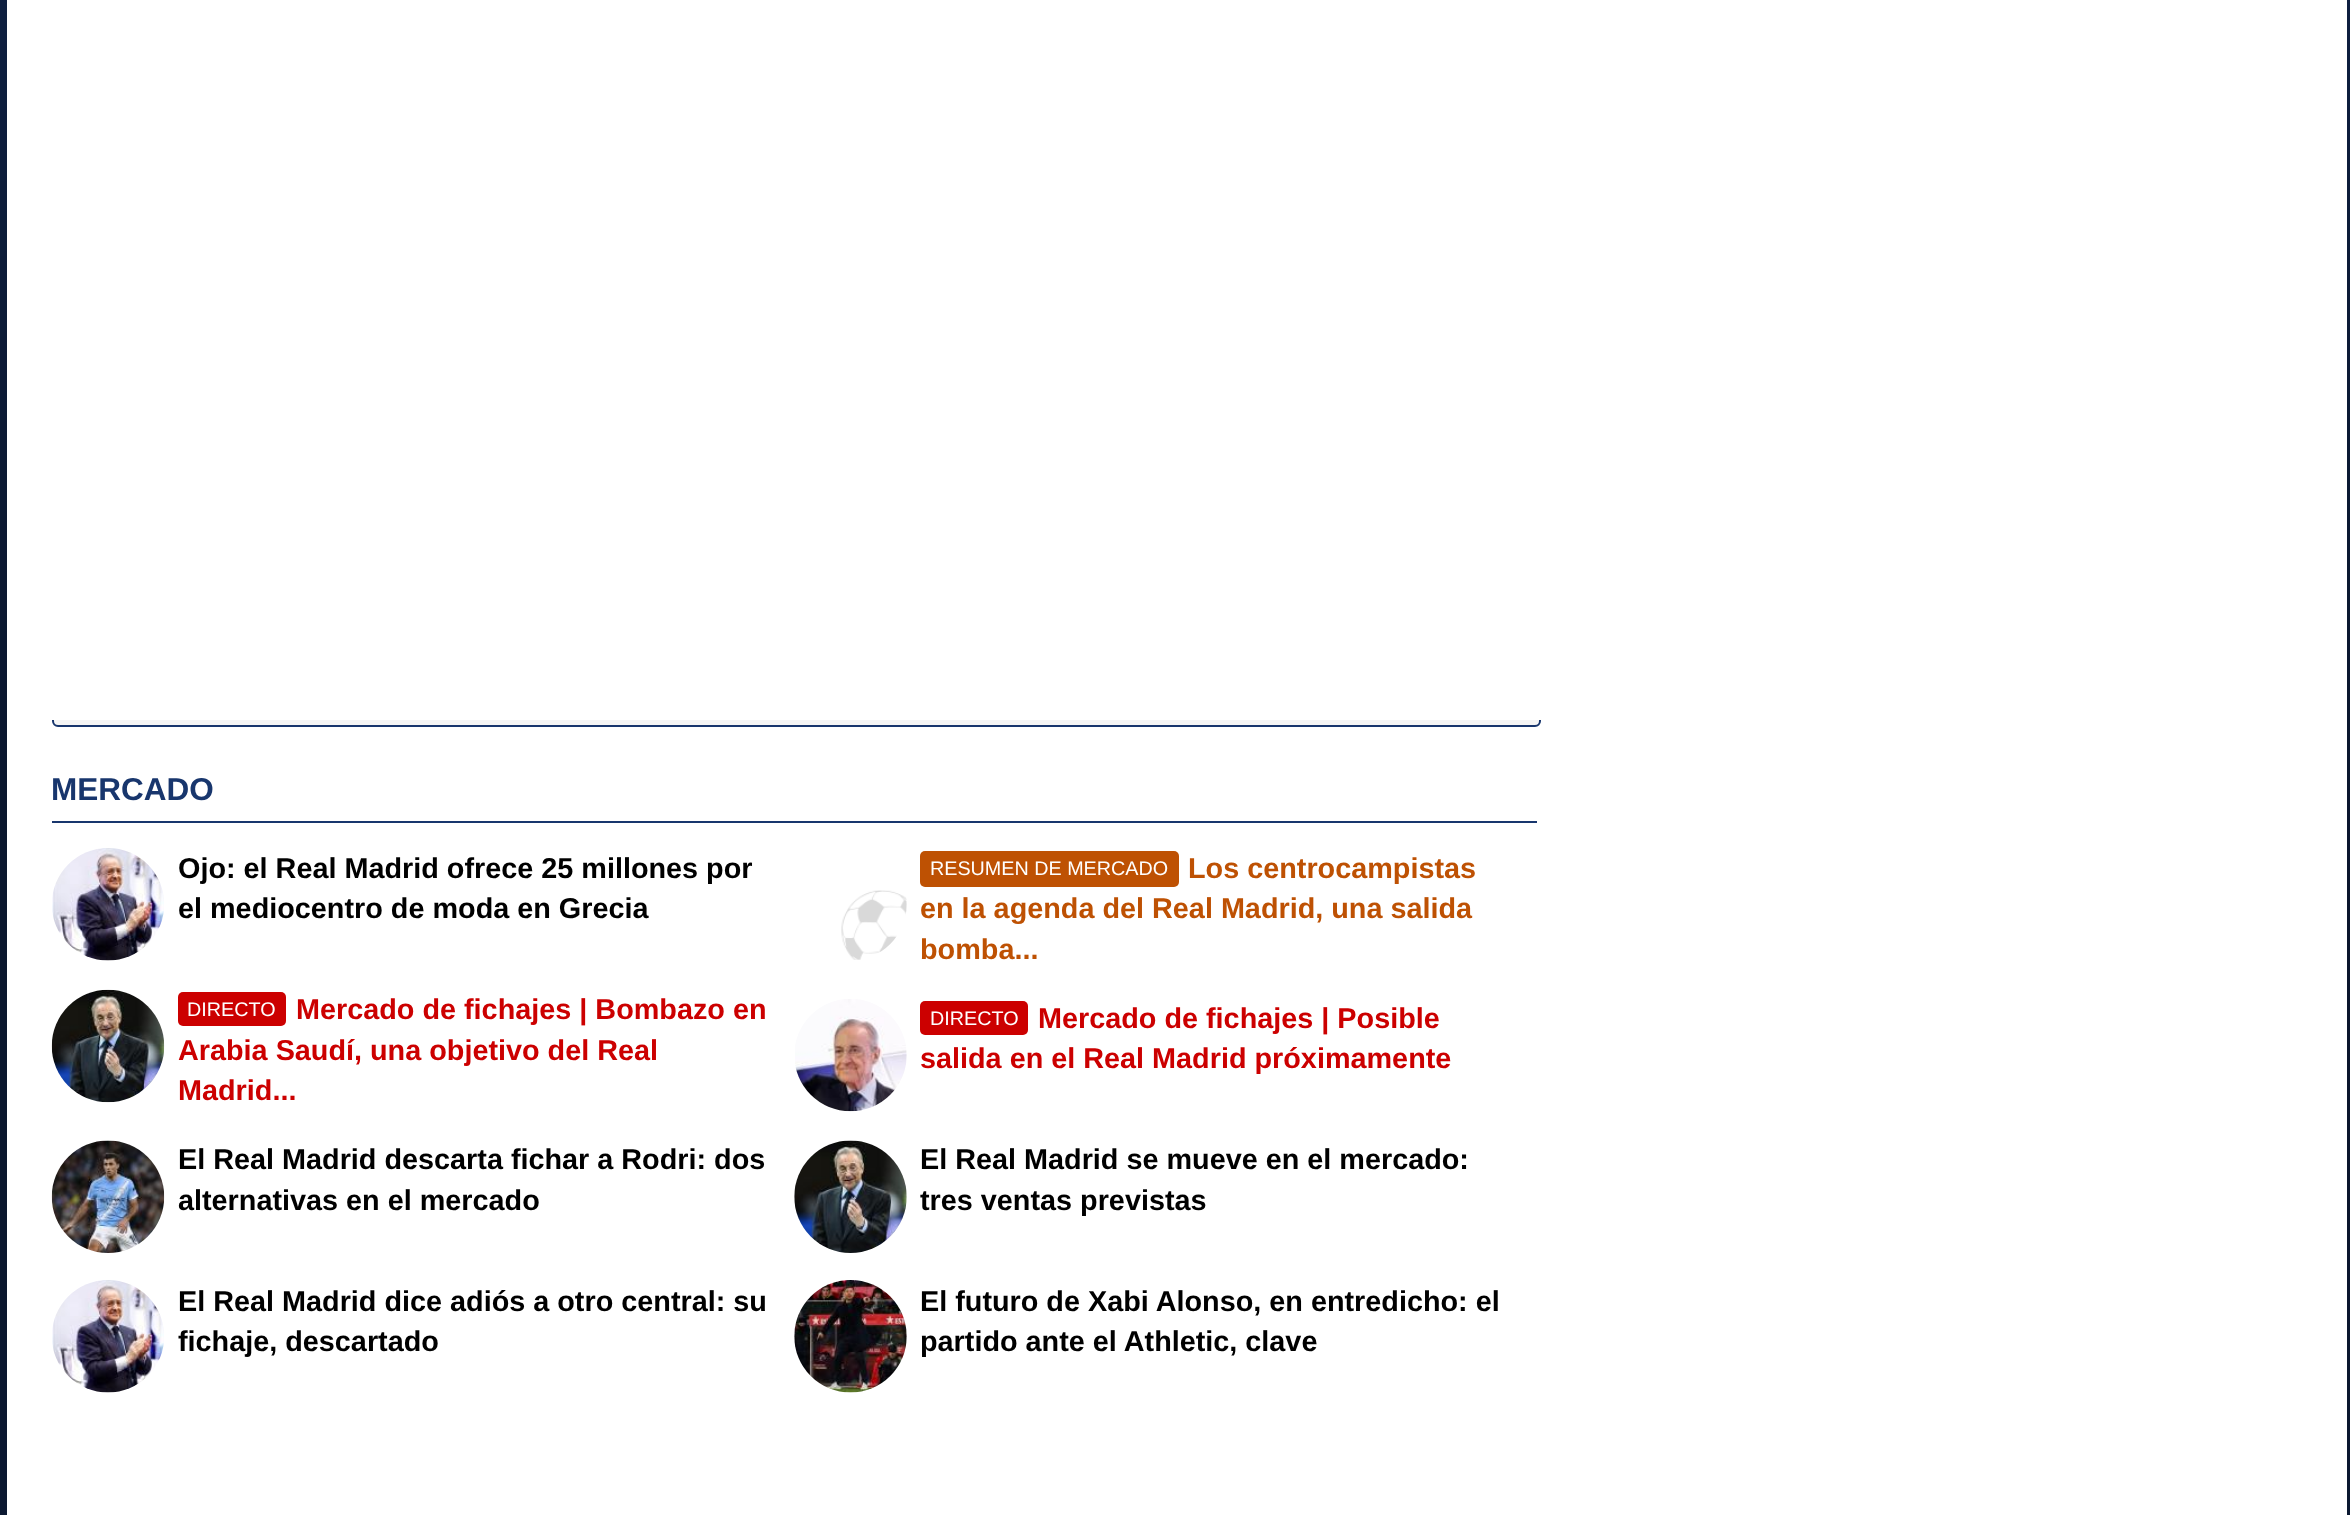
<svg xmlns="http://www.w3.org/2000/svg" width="2350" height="1515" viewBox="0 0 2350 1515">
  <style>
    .t1 { font: bold 31.5px Liberation Sans; fill: #18366d; }
    .t2 { font: bold 28.8px Liberation Sans; fill: #000; }
    .t3 { font: 19.75px Liberation Sans; fill: #fff; }
    .t4 { font: bold 28.8px Liberation Sans; fill: #c00; }
    .t5 { font: bold 28.8px Liberation Sans; fill: #be5103; }
  </style>
  <rect width="100%" height="100%" fill="#fff"/>
  <image x="0" y="0" width="2350" height="1515" href="images/1.png"/>
  <rect x="7" y="720" width="2340" height="795" fill="#fff"/>
  <rect x="53" y="107" width="1487" height="619" rx="5" fill="#f5f5f5" stroke="#18366d" stroke-width="2"/>
  <rect x="7" y="0" width="2340" height="720" fill="#fff"/>
  <rect x="52" y="821" width="1485" height="2" fill="#18366d"/>
  <text x="51" y="800" class="t1">MERCADO</text>
  <image x="52" y="848" width="112" height="113" href="images/2.png"/>
  <text x="178" y="878" class="t2">Ojo: el Real Madrid ofrece 25 millones por</text>
  <text x="178" y="918" class="t2">el mediocentro de moda en Grecia</text>
  <image x="51" y="989" width="114" height="114" href="images/3.png"/>
  <rect x="178" y="992" width="108" height="34" rx="5" fill="#c00"/>
  <text x="187" y="1016" class="t3">DIRECTO</text>
  <text x="296" y="1019" class="t4">Mercado de fichajes | Bombazo en</text>
  <text x="178" y="1060" class="t4">Arabia Saudí, una objetivo del Real</text>
  <text x="178" y="1100" class="t4">Madrid...</text>
  <image x="841" y="890" width="66" height="70" href="images/4.png"/>
  <rect x="920" y="851" width="259" height="36" rx="5" fill="#be5103"/>
  <text x="930" y="875" class="t3">RESUMEN DE MERCADO</text>
  <text x="1188" y="878" class="t5">Los centrocampistas</text>
  <text x="920" y="918" class="t5">en la agenda del Real Madrid, una salida</text>
  <text x="920" y="959" class="t5">bomba...</text>
  <image x="795" y="999" width="112" height="113" href="images/5.png"/>
  <rect x="920" y="1001" width="108" height="34" rx="5" fill="#c00"/>
  <text x="930" y="1025" class="t3">DIRECTO</text>
  <text x="1038" y="1028" class="t4">Mercado de fichajes | Posible</text>
  <text x="920" y="1068" class="t4">salida en el Real Madrid próximamente</text>
  <image x="51" y="1140" width="114" height="113" href="images/6.png"/>
  <text x="178" y="1169" class="t2">El Real Madrid descarta fichar a Rodri: dos</text>
  <text x="178" y="1210" class="t2">alternativas en el mercado</text>
  <image x="52" y="1280" width="112" height="113" href="images/7.png"/>
  <text x="178" y="1311" class="t2">El Real Madrid dice adiós a otro central: su</text>
  <text x="178" y="1351" class="t2">fichaje, descartado</text>
  <image x="794" y="1140" width="113" height="113" href="images/8.png"/>
  <text x="920" y="1169" class="t2">El Real Madrid se mueve en el mercado:</text>
  <text x="920" y="1210" class="t2">tres ventas previstas</text>
  <image x="794" y="1280" width="113" height="113" href="images/9.png"/>
  <text x="920" y="1311" class="t2">El futuro de Xabi Alonso, en entredicho: el</text>
  <text x="920" y="1351" class="t2">partido ante el Athletic, clave</text>
</svg>
